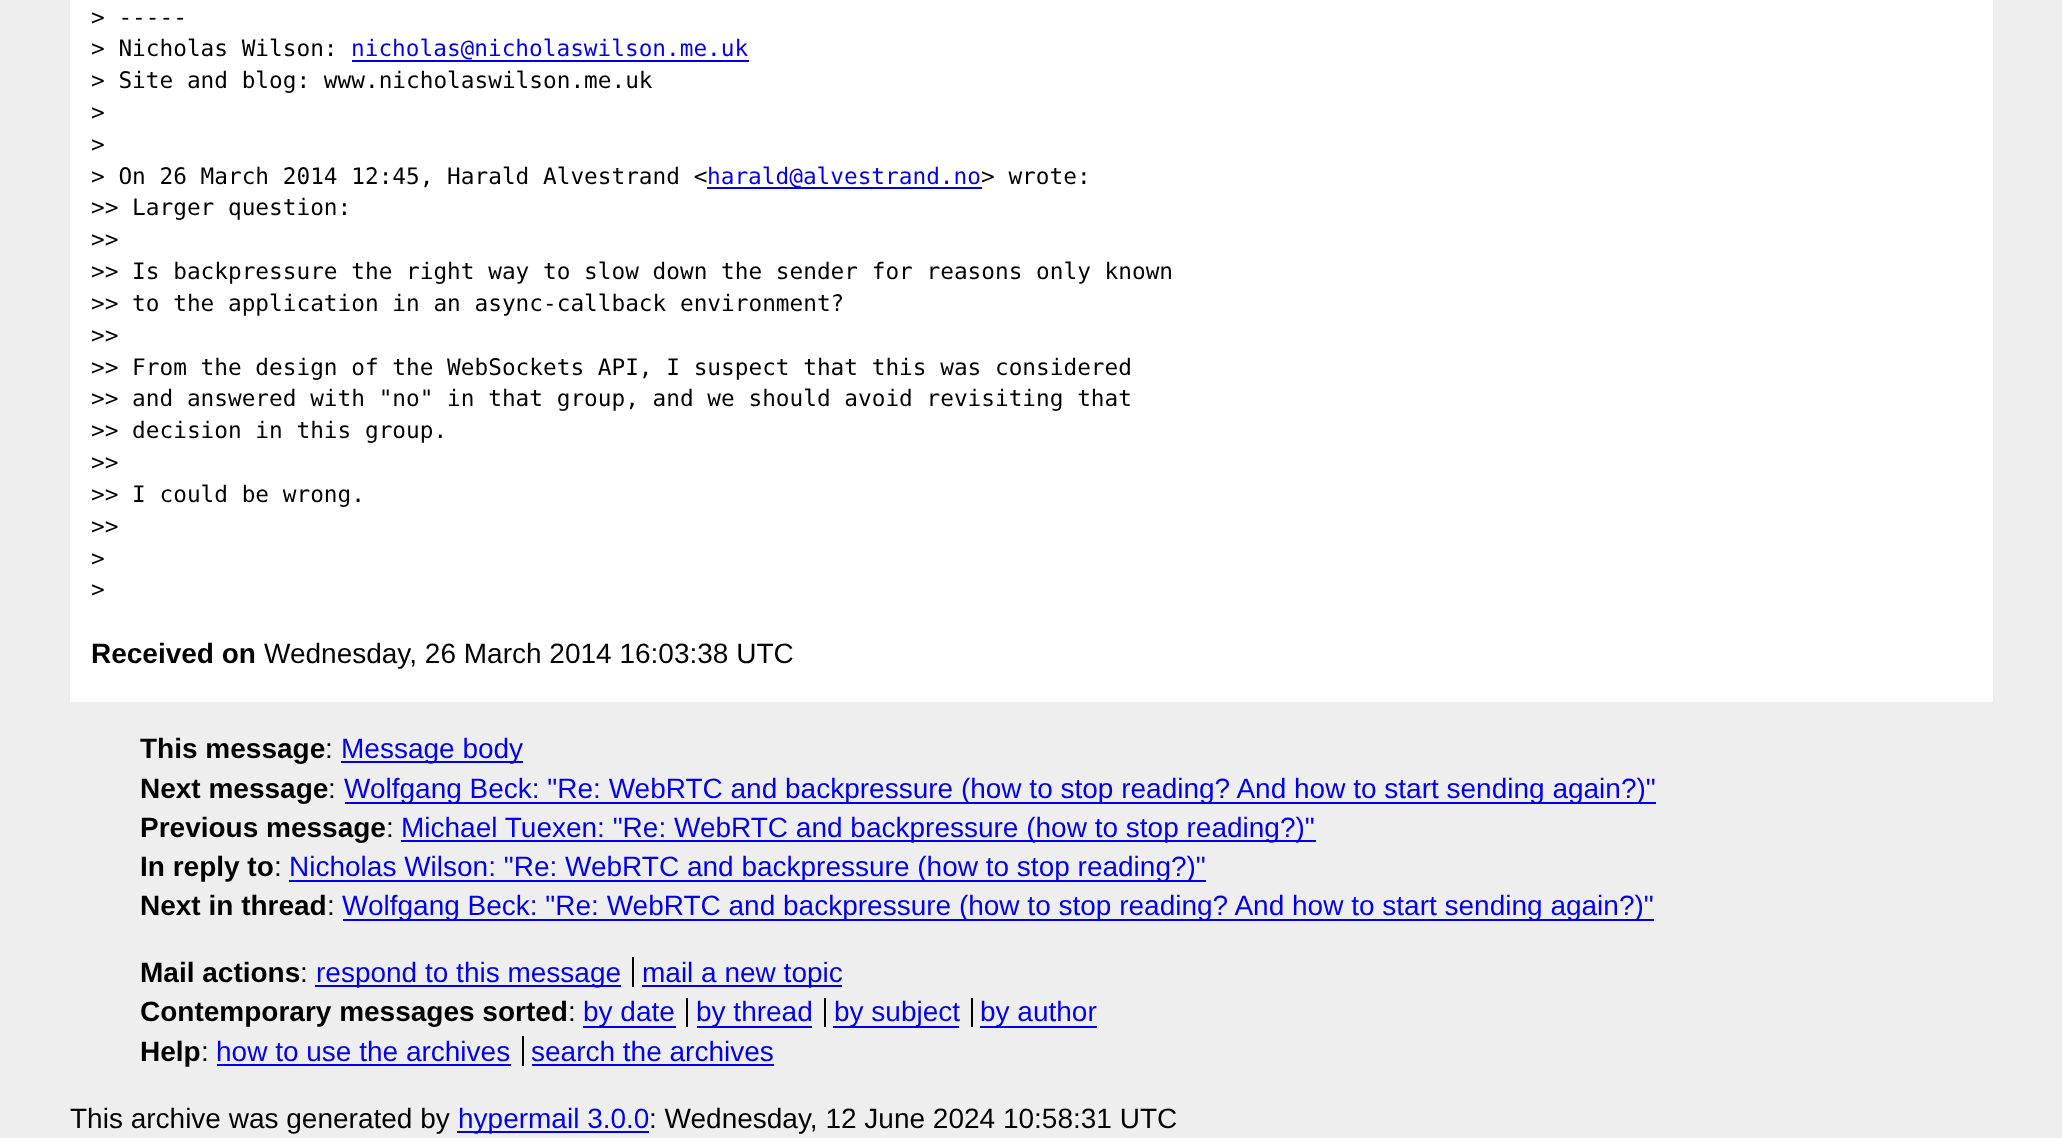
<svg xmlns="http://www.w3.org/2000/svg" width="2062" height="1138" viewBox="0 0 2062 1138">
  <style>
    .t1 { font: 22.75px DejaVu Sans Mono; fill: #000; }
    .t2 { font: 22.75px DejaVu Sans Mono; fill: #00e; }
    .t3 { font: bold 28px Liberation Sans; fill: #000; }
    .t4 { font: 28px Liberation Sans; fill: #000; }
    .t5 { font: 28px Liberation Sans; fill: #00e; }
  </style>
  <rect width="100%" height="100%" fill="#eee"/>
  <rect x="70" y="0" width="1923" height="702" fill="#fff"/>
  <text x="91" y="25" class="t1">&gt; -----</text>
  <text x="91" y="56" class="t1">&gt; Nicholas Wilson:</text>
  <text x="351" y="56" class="t2">nicholas@nicholaswilson.me.uk</text>
  <rect x="352" y="60" width="397" height="2" fill="#00e"/>
  <text x="91" y="88" class="t1">&gt; Site and blog: www.nicholaswilson.me.uk</text>
  <text x="91" y="120" class="t1">&gt;</text>
  <text x="91" y="152" class="t1">&gt;</text>
  <text x="91" y="184" class="t1">&gt; On 26 March 2014 12:45, Harald Alvestrand &lt;</text>
  <rect x="707" y="187" width="275" height="2" fill="#00e"/>
  <text x="707" y="184" class="t2">harald@alvestrand.no</text>
  <text x="981" y="184" class="t1">&gt; wrote:</text>
  <text x="91" y="215" class="t1">&gt;&gt; Larger question:</text>
  <text x="91" y="247" class="t1">&gt;&gt;</text>
  <text x="91" y="279" class="t1">&gt;&gt; Is backpressure the right way to slow down the sender for reasons only known</text>
  <text x="91" y="311" class="t1">&gt;&gt; to the application in an async-callback environment?</text>
  <text x="91" y="343" class="t1">&gt;&gt;</text>
  <text x="91" y="375" class="t1">&gt;&gt; From the design of the WebSockets API, I suspect that this was considered</text>
  <text x="91" y="406" class="t1">&gt;&gt; and answered with "no" in that group, and we should avoid revisiting that</text>
  <text x="91" y="438" class="t1">&gt;&gt; decision in this group.</text>
  <text x="91" y="470" class="t1">&gt;&gt;</text>
  <text x="91" y="502" class="t1">&gt;&gt; I could be wrong.</text>
  <text x="91" y="534" class="t1">&gt;&gt;</text>
  <text x="91" y="566" class="t1">&gt;</text>
  <text x="91" y="597" class="t1">&gt;</text>
  <text x="91" y="663" class="t3">Received on</text>
  <text x="264" y="663" class="t4">Wednesday, 26 March 2014 16:03:38 UTC</text>
  <text x="140" y="758" class="t3">This message</text>
  <text x="325" y="758" class="t4">:</text>
  <rect x="341" y="761" width="182" height="2" fill="#00e"/>
  <text x="341" y="758" class="t5">Message body</text>
  <text x="140" y="798" class="t3">Next message</text>
  <text x="328" y="798" class="t4">:</text>
  <rect x="345" y="802" width="1311" height="2" fill="#00e"/>
  <text x="344" y="798" class="t5">Wolfgang Beck: "Re: WebRTC and backpressure (how to stop reading? And how to start sending again?)"</text>
  <text x="140" y="837" class="t3">Previous message</text>
  <text x="386" y="837" class="t4">:</text>
  <rect x="401" y="840" width="915" height="2" fill="#00e"/>
  <text x="401" y="837" class="t5">Michael Tuexen: "Re: WebRTC and backpressure (how to stop reading?)"</text>
  <text x="140" y="876" class="t3">In reply to</text>
  <text x="274" y="876" class="t4">:</text>
  <rect x="289" y="880" width="917" height="2" fill="#00e"/>
  <text x="289" y="876" class="t5">Nicholas Wilson: "Re: WebRTC and backpressure (how to stop reading?)"</text>
  <text x="140" y="915" class="t3">Next in thread</text>
  <text x="327" y="915" class="t4">:</text>
  <rect x="343" y="919" width="1311" height="2" fill="#00e"/>
  <text x="342" y="915" class="t5">Wolfgang Beck: "Re: WebRTC and backpressure (how to stop reading? And how to start sending again?)"</text>
  <text x="140" y="982" class="t3">Mail actions</text>
  <text x="300" y="982" class="t4">:</text>
  <rect x="315" y="985" width="306" height="2" fill="#00e"/>
  <text x="316" y="982" class="t5">respond to this message</text>
  <rect x="642" y="985" width="200" height="2" fill="#00e"/>
  <text x="642" y="982" class="t5">mail a new topic</text>
  <rect x="632" y="957" width="2" height="30" fill="#000"/>
  <text x="140" y="1021" class="t3">Contemporary messages sorted</text>
  <text x="568" y="1021" class="t4">:</text>
  <rect x="583" y="1026" width="93" height="2" fill="#00e"/>
  <text x="583" y="1021" class="t5">by date</text>
  <rect x="697" y="1026" width="115" height="2" fill="#00e"/>
  <text x="696" y="1021" class="t5">by thread</text>
  <rect x="686" y="998" width="2" height="29" fill="#000"/>
  <rect x="833" y="1026" width="126" height="2" fill="#00e"/>
  <text x="834" y="1021" class="t5">by subject</text>
  <rect x="824" y="998" width="2" height="29" fill="#000"/>
  <rect x="980" y="1026" width="117" height="2" fill="#00e"/>
  <text x="980" y="1021" class="t5">by author</text>
  <rect x="971" y="998" width="2" height="29" fill="#000"/>
  <text x="140" y="1061" class="t3">Help</text>
  <text x="201" y="1061" class="t4">:</text>
  <text x="216" y="1061" class="t5">how to use the archives</text>
  <rect x="217" y="1064" width="294" height="2" fill="#00e"/>
  <text x="531" y="1061" class="t5">search the archives</text>
  <rect x="522" y="1036" width="2" height="30" fill="#000"/>
  <rect x="532" y="1064" width="242" height="2" fill="#00e"/>
  <text x="70" y="1128" class="t4">This archive was generated by</text>
  <rect x="457" y="1131" width="192" height="2" fill="#00e"/>
  <text x="458" y="1128" class="t5">hypermail 3.0.0</text>
  <text x="649" y="1128" class="t4">: Wednesday, 12 June 2024 10:58:31 UTC</text>
</svg>
